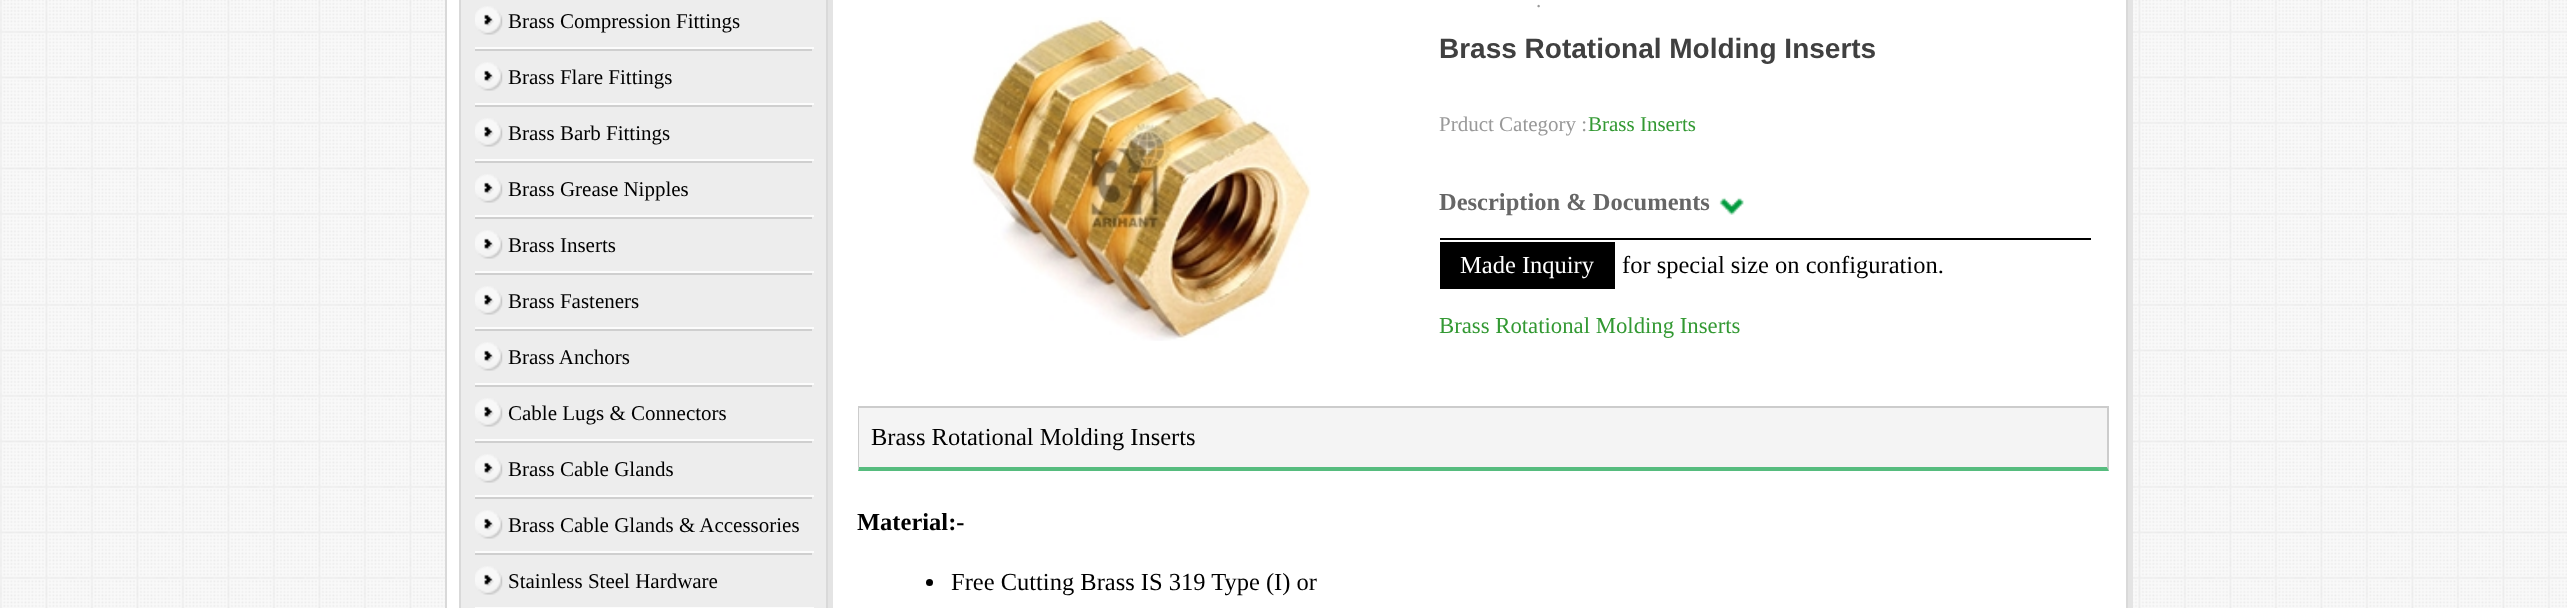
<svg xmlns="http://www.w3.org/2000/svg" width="2567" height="608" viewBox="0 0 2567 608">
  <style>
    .t1 { font: 21px Liberation Serif; fill: #000; }
    .t2 { font: 21px Liberation Serif; fill: #999; }
    .t3 { font: bold 28px Liberation Sans; fill: #404040; }
    .t4 { font: 21px Liberation Serif; fill: #393; }
    .t5 { font: bold 24.5px Liberation Serif; fill: #666; }
    .t6 { font: 24.5px Liberation Serif; fill: #fff; }
    .t7 { font: 24.5px Liberation Serif; fill: #000; }
    .t8 { font: 22.75px Liberation Serif; fill: #393; }
    .t9 { font: bold 24.5px Liberation Serif; fill: #000; }
  </style>
  <rect width="100%" height="100%" fill="#fff"/>
  <image x="0" y="0" width="2567" height="608" href="images/1.png"/>
  <path d="M450 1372V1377H2133V-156H2128V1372Z" fill="#e4e4e4"/>
  <rect x="446" y="-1" width="1681" height="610" fill="#fff" stroke="#d9d9d9" stroke-width="2"/>
  <path d="M464 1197V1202H833V-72H828V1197Z" fill="#e4e4e4"/>
  <rect x="460" y="-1" width="367" height="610" fill="#ededed" stroke="#d9d9d9" stroke-width="2"/>
  <image x="475" y="6" width="28" height="29" href="images/2.png"/>
  <rect x="473" y="47" width="341" height="2" fill="#fcfcfc"/>
  <rect x="473" y="47" width="2" height="2" fill="#ededed"/>
  <text x="508" y="28" class="t1">Brass Compression Fittings</text>
  <image x="475" y="62" width="28" height="29" href="images/2.png"/>
  <rect x="473" y="49" width="341" height="2" fill="#cfcfcf"/>
  <rect x="812" y="49" width="2" height="2" fill="#ededed"/>
  <rect x="473" y="103" width="341" height="2" fill="#fcfcfc"/>
  <rect x="473" y="49" width="2" height="56" fill="#ededed"/>
  <text x="508" y="84" class="t1">Brass Flare Fittings</text>
  <image x="475" y="118" width="28" height="29" href="images/2.png"/>
  <rect x="473" y="105" width="341" height="2" fill="#cfcfcf"/>
  <rect x="812" y="105" width="2" height="2" fill="#ededed"/>
  <rect x="473" y="159" width="341" height="2" fill="#fcfcfc"/>
  <rect x="473" y="105" width="2" height="56" fill="#ededed"/>
  <text x="508" y="140" class="t1">Brass Barb Fittings</text>
  <image x="475" y="174" width="28" height="29" href="images/2.png"/>
  <rect x="473" y="161" width="341" height="2" fill="#cfcfcf"/>
  <rect x="812" y="161" width="2" height="2" fill="#ededed"/>
  <rect x="473" y="215" width="341" height="2" fill="#fcfcfc"/>
  <rect x="473" y="161" width="2" height="56" fill="#ededed"/>
  <text x="508" y="196" class="t1">Brass Grease Nipples</text>
  <image x="475" y="230" width="28" height="29" href="images/2.png"/>
  <rect x="473" y="217" width="341" height="2" fill="#cfcfcf"/>
  <rect x="812" y="217" width="2" height="2" fill="#ededed"/>
  <rect x="473" y="271" width="341" height="2" fill="#fcfcfc"/>
  <rect x="473" y="217" width="2" height="56" fill="#ededed"/>
  <text x="508" y="252" class="t1">Brass Inserts</text>
  <image x="475" y="286" width="28" height="29" href="images/2.png"/>
  <rect x="473" y="273" width="341" height="2" fill="#cfcfcf"/>
  <rect x="812" y="273" width="2" height="2" fill="#ededed"/>
  <rect x="473" y="327" width="341" height="2" fill="#fcfcfc"/>
  <rect x="473" y="273" width="2" height="56" fill="#ededed"/>
  <text x="508" y="308" class="t1">Brass Fasteners</text>
  <image x="475" y="342" width="28" height="29" href="images/2.png"/>
  <rect x="473" y="329" width="341" height="2" fill="#cfcfcf"/>
  <rect x="812" y="329" width="2" height="2" fill="#ededed"/>
  <rect x="473" y="383" width="341" height="2" fill="#fcfcfc"/>
  <rect x="473" y="329" width="2" height="56" fill="#ededed"/>
  <text x="508" y="364" class="t1">Brass Anchors</text>
  <image x="475" y="398" width="28" height="29" href="images/2.png"/>
  <rect x="473" y="385" width="341" height="2" fill="#cfcfcf"/>
  <rect x="812" y="385" width="2" height="2" fill="#ededed"/>
  <rect x="473" y="439" width="341" height="2" fill="#fcfcfc"/>
  <rect x="473" y="385" width="2" height="56" fill="#ededed"/>
  <text x="508" y="420" class="t1">Cable Lugs &amp; Connectors</text>
  <image x="475" y="454" width="28" height="29" href="images/2.png"/>
  <rect x="473" y="441" width="341" height="2" fill="#cfcfcf"/>
  <rect x="812" y="441" width="2" height="2" fill="#ededed"/>
  <rect x="473" y="495" width="341" height="2" fill="#fcfcfc"/>
  <rect x="473" y="441" width="2" height="56" fill="#ededed"/>
  <text x="508" y="476" class="t1">Brass Cable Glands</text>
  <image x="475" y="510" width="28" height="29" href="images/2.png"/>
  <rect x="473" y="497" width="341" height="2" fill="#cfcfcf"/>
  <rect x="812" y="497" width="2" height="2" fill="#ededed"/>
  <rect x="473" y="551" width="341" height="2" fill="#fcfcfc"/>
  <rect x="473" y="497" width="2" height="56" fill="#ededed"/>
  <text x="508" y="532" class="t1">Brass Cable Glands &amp; Accessories</text>
  <image x="475" y="566" width="28" height="29" href="images/2.png"/>
  <rect x="473" y="553" width="341" height="2" fill="#cfcfcf"/>
  <rect x="812" y="553" width="2" height="2" fill="#ededed"/>
  <rect x="473" y="607" width="341" height="1" fill="#fcfcfc"/>
  <rect x="473" y="553" width="2" height="55" fill="#ededed"/>
  <text x="508" y="588" class="t1">Stainless Steel Hardware</text>
  <image x="971" y="17" width="340" height="324" href="images/3.png"/>
  <text x="1536" y="7" class="t2">.</text>
  <text x="1439" y="58" class="t3">Brass Rotational Molding Inserts</text>
  <text x="1439" y="131" class="t2">Prduct Category :</text>
  <text x="1588" y="131" class="t4">Brass Inserts</text>
  <rect x="1440" y="238" width="651" height="2" fill="#000"/>
  <image x="1719" y="197" width="25" height="18" href="images/4.png"/>
  <text x="1439" y="210" class="t5">Description &amp; Documents</text>
  <rect x="1440" y="242" width="175" height="47" fill="#000"/>
  <text x="1460" y="273" class="t6">Made Inquiry</text>
  <text x="1622" y="273" class="t7">for special size on configuration.</text>
  <text x="1439" y="333" class="t8">Brass Rotational Molding Inserts</text>
  <rect x="859" y="408" width="1248" height="59" fill="#f4f4f4"/>
  <rect x="858" y="406" width="1251" height="2" fill="#ccc"/>
  <path d="M2109 406V471L2107 467V408Z" fill="#ccc"/>
  <path d="M2109 471H858L859 467H2107Z" fill="#56bc7e"/>
  <path d="M858 471V406L859 408V467Z" fill="#ccc"/>
  <text x="871" y="445" class="t7">Brass Rotational Molding Inserts</text>
  <text x="857" y="530" class="t9">Material:-</text>
  <circle cx="929.5" cy="582.5" r="3.5" fill="#000"/>
  <text x="951" y="590" class="t7">Free Cutting Brass IS 319 Type (I) or</text>
</svg>
